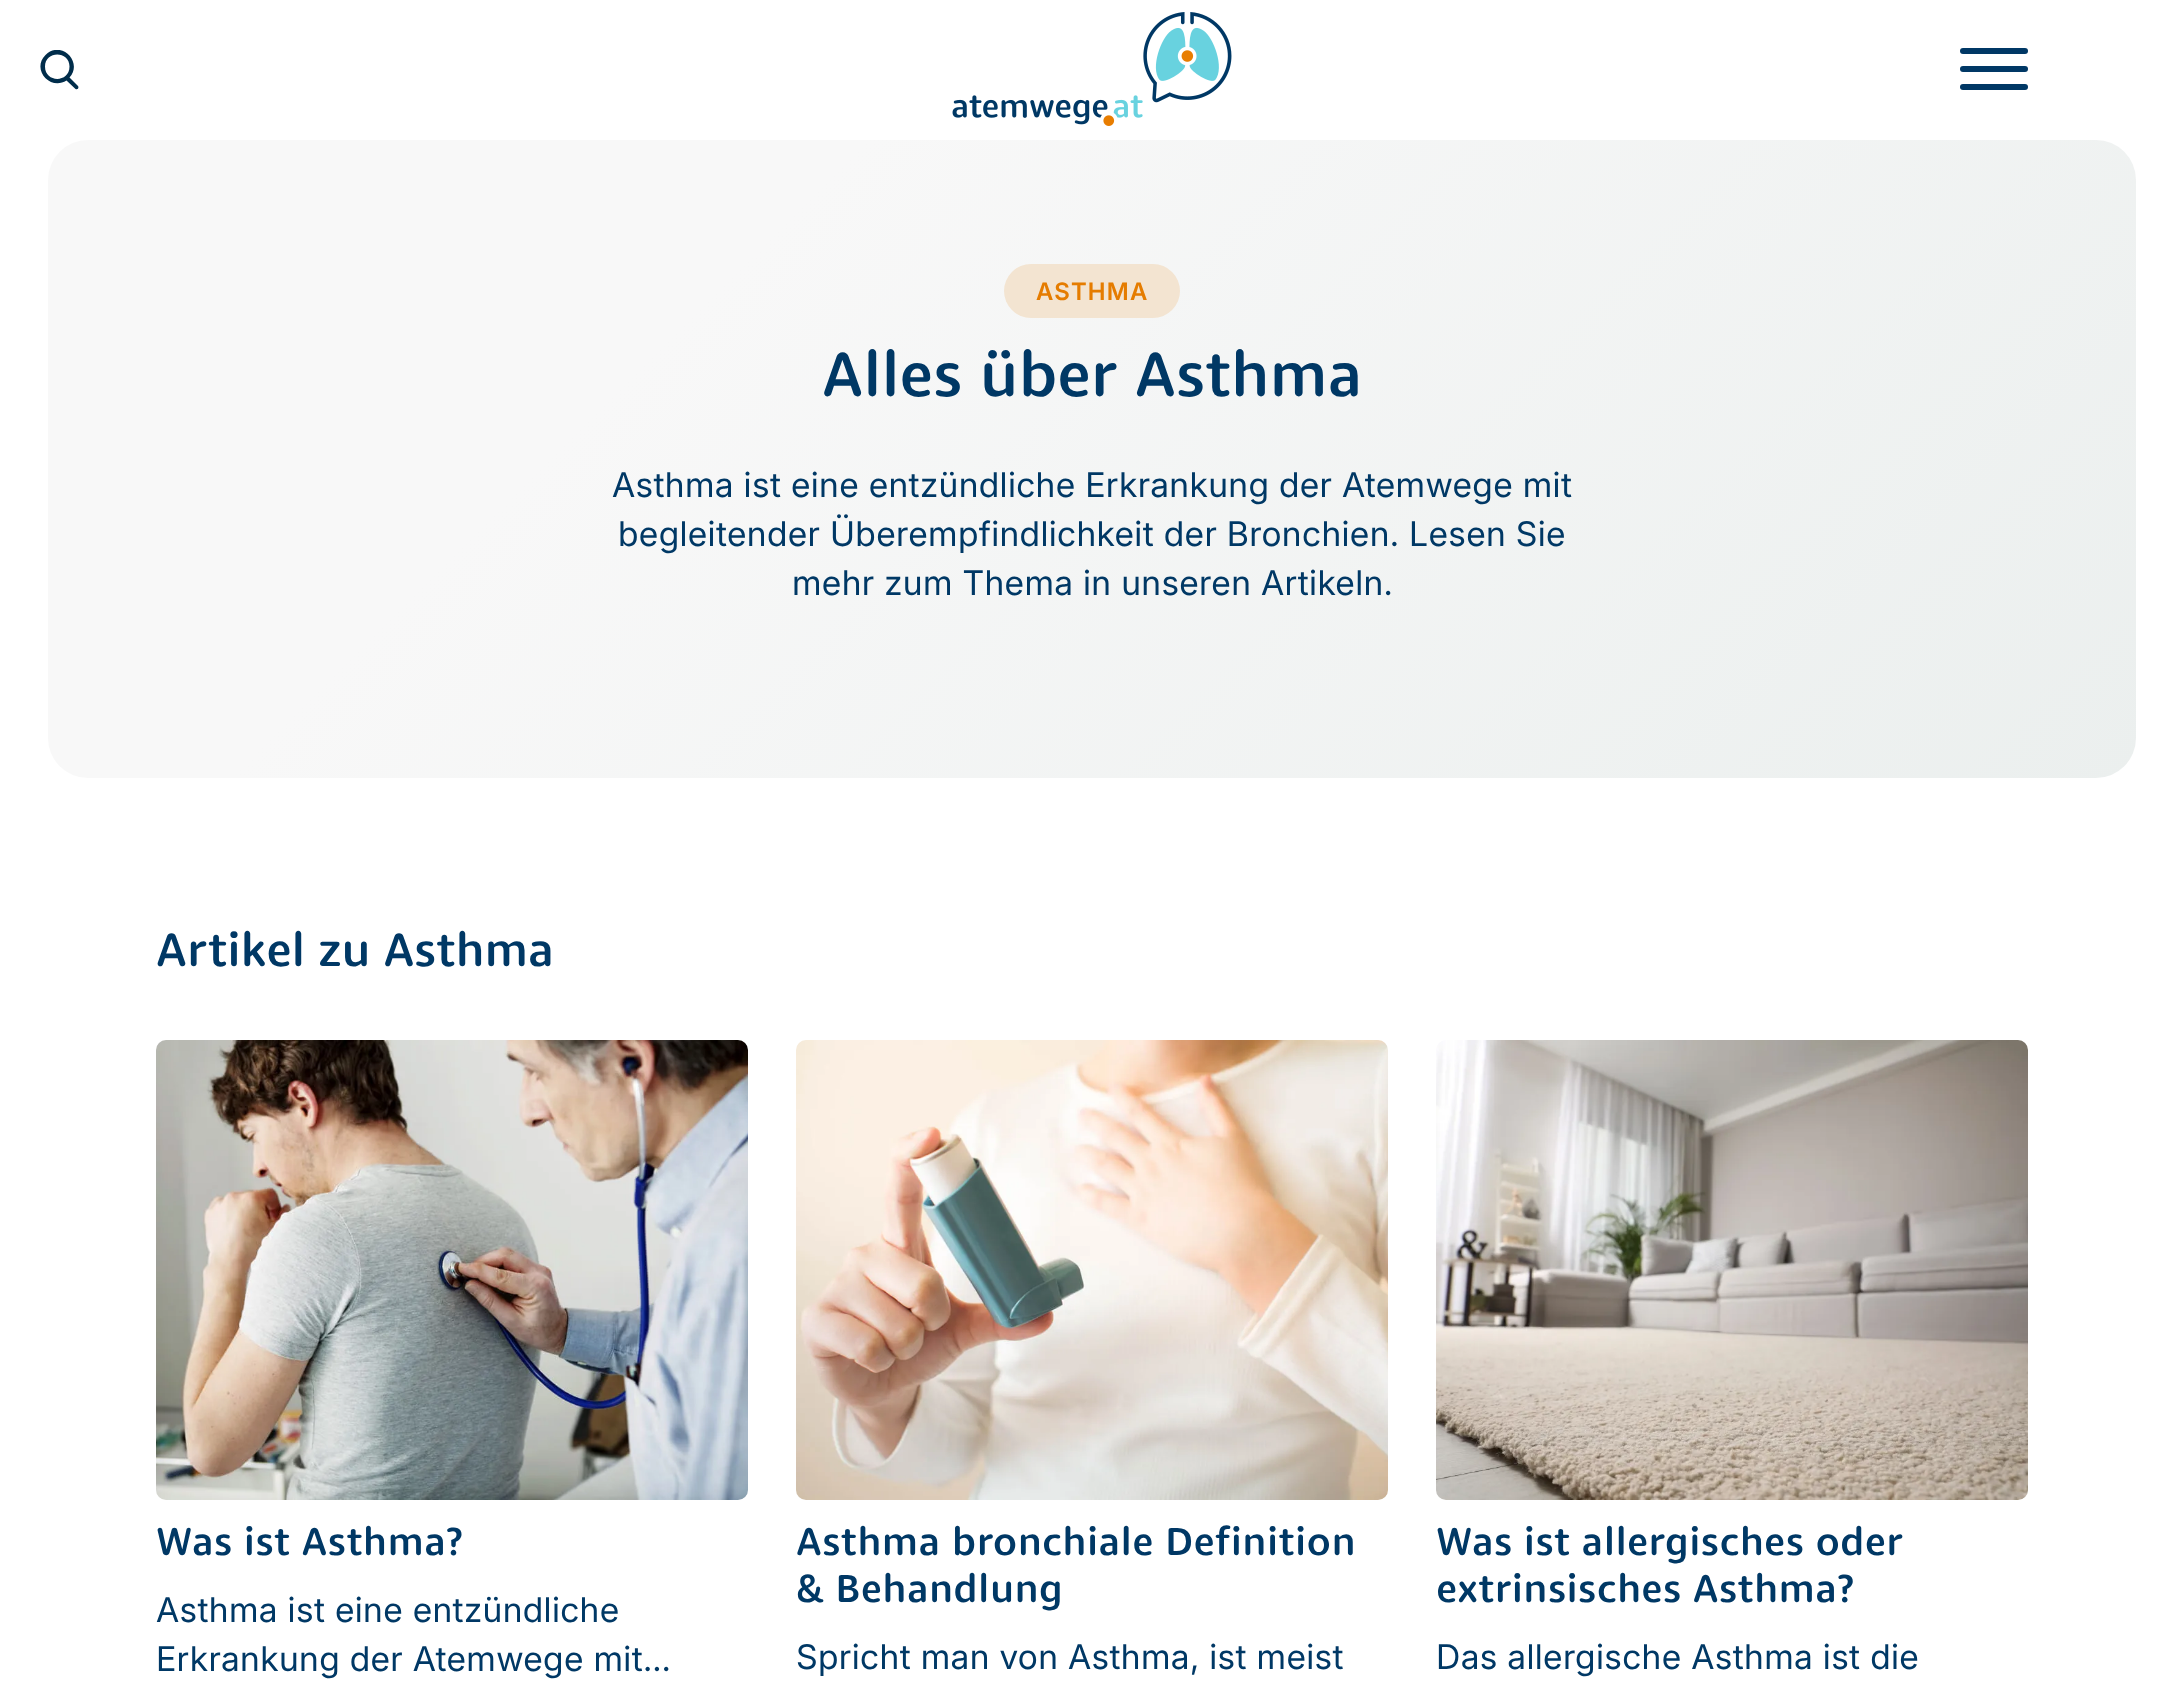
<svg xmlns="http://www.w3.org/2000/svg" width="2184" height="1692" viewBox="0 0 2184 1692">
  <style>
    .t1 { font: 600 24px Inter; letter-spacing: 1.25px; fill: #e57c00; }
    .t2 { font: 500 64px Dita; fill: #003865; }
    .t3 { font: 34px Inter; letter-spacing: 0.35px; fill: #003865; }
    .t4 { font: 500 48px Dita; fill: #003865; }
    .t5 { font: 500 40px Dita; letter-spacing: 0.4px; fill: #003865; }
  </style>
  <defs>
    <clipPath id="clip1"><rect x="40" y="50" width="40" height="40"/></clipPath>
    <linearGradient id="g1" gradientUnits="userSpaceOnUse" x1="410" y1="-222" x2="1774" y2="1141"><stop offset="0.3" stop-color="#f8f8f8"/><stop offset="1" stop-color="#ebefee"/></linearGradient>
  </defs>
  <rect width="100%" height="100%" fill="#fff"/>
  <g clip-path="url(#clip1)">
    <path d="M77.5 85.5L69.5 77.5C83.5 62 61 39.5 45.5 55C31 69.5 50.5 91 66.5 80.5L75.5 89C78 90.5 79.5 87 77.5 85.5ZM45 66.5C45 50.5 69.5 50.5 69.5 66.5C69.5 83 45 83 45 66.5Z" fill="#002d4b"/>
  </g>
  <image x="952" y="12" width="280" height="114" href="images/1.png"/>
  <rect x="1960" y="48" width="68" height="6" rx="3" fill="#003865"/>
  <rect x="1960" y="66" width="68" height="6" rx="3" fill="#003865"/>
  <rect x="1960" y="84" width="68" height="6" rx="3" fill="#003865"/>
  <rect x="48" y="140" width="2088" height="638" rx="40" fill="url(#g1)"/>
  <rect x="1004" y="264" width="176" height="54" rx="27" fill="#f3e4d1"/>
  <text x="1036" y="300" class="t1">ASTHMA</text>
  <text x="822" y="396" class="t2">Alles über Asthma</text>
  <text x="612" y="497" class="t3">Asthma ist eine entzündliche Erkrankung der Atemwege mit</text>
  <text x="618" y="546" class="t3">begleitender Überempfindlichkeit der Bronchien. Lesen Sie</text>
  <text x="792" y="595" class="t3">mehr zum Thema in unseren Artikeln.</text>
  <text x="156" y="966" class="t4">Artikel zu Asthma</text>
  <image x="156" y="1040" width="592" height="460" href="images/2.png"/>
  <text x="156" y="1555" class="t5">Was ist Asthma?</text>
  <text x="156" y="1622" class="t3">Asthma ist eine entzündliche</text>
  <text x="156" y="1671" class="t3">Erkrankung der Atemwege mit…</text>
  <image x="796" y="1040" width="592" height="460" href="images/3.png"/>
  <text x="796" y="1555" class="t5">Asthma bronchiale Definition</text>
  <text x="796" y="1602" class="t5">&amp; Behandlung</text>
  <text x="796" y="1669" class="t3">Spricht man von Asthma, ist meist</text>
  <image x="1436" y="1040" width="592" height="460" href="images/4.png"/>
  <text x="1436" y="1555" class="t5">Was ist allergisches oder</text>
  <text x="1436" y="1602" class="t5">extrinsisches Asthma?</text>
  <text x="1436" y="1669" class="t3">Das allergische Asthma ist die</text>
</svg>
